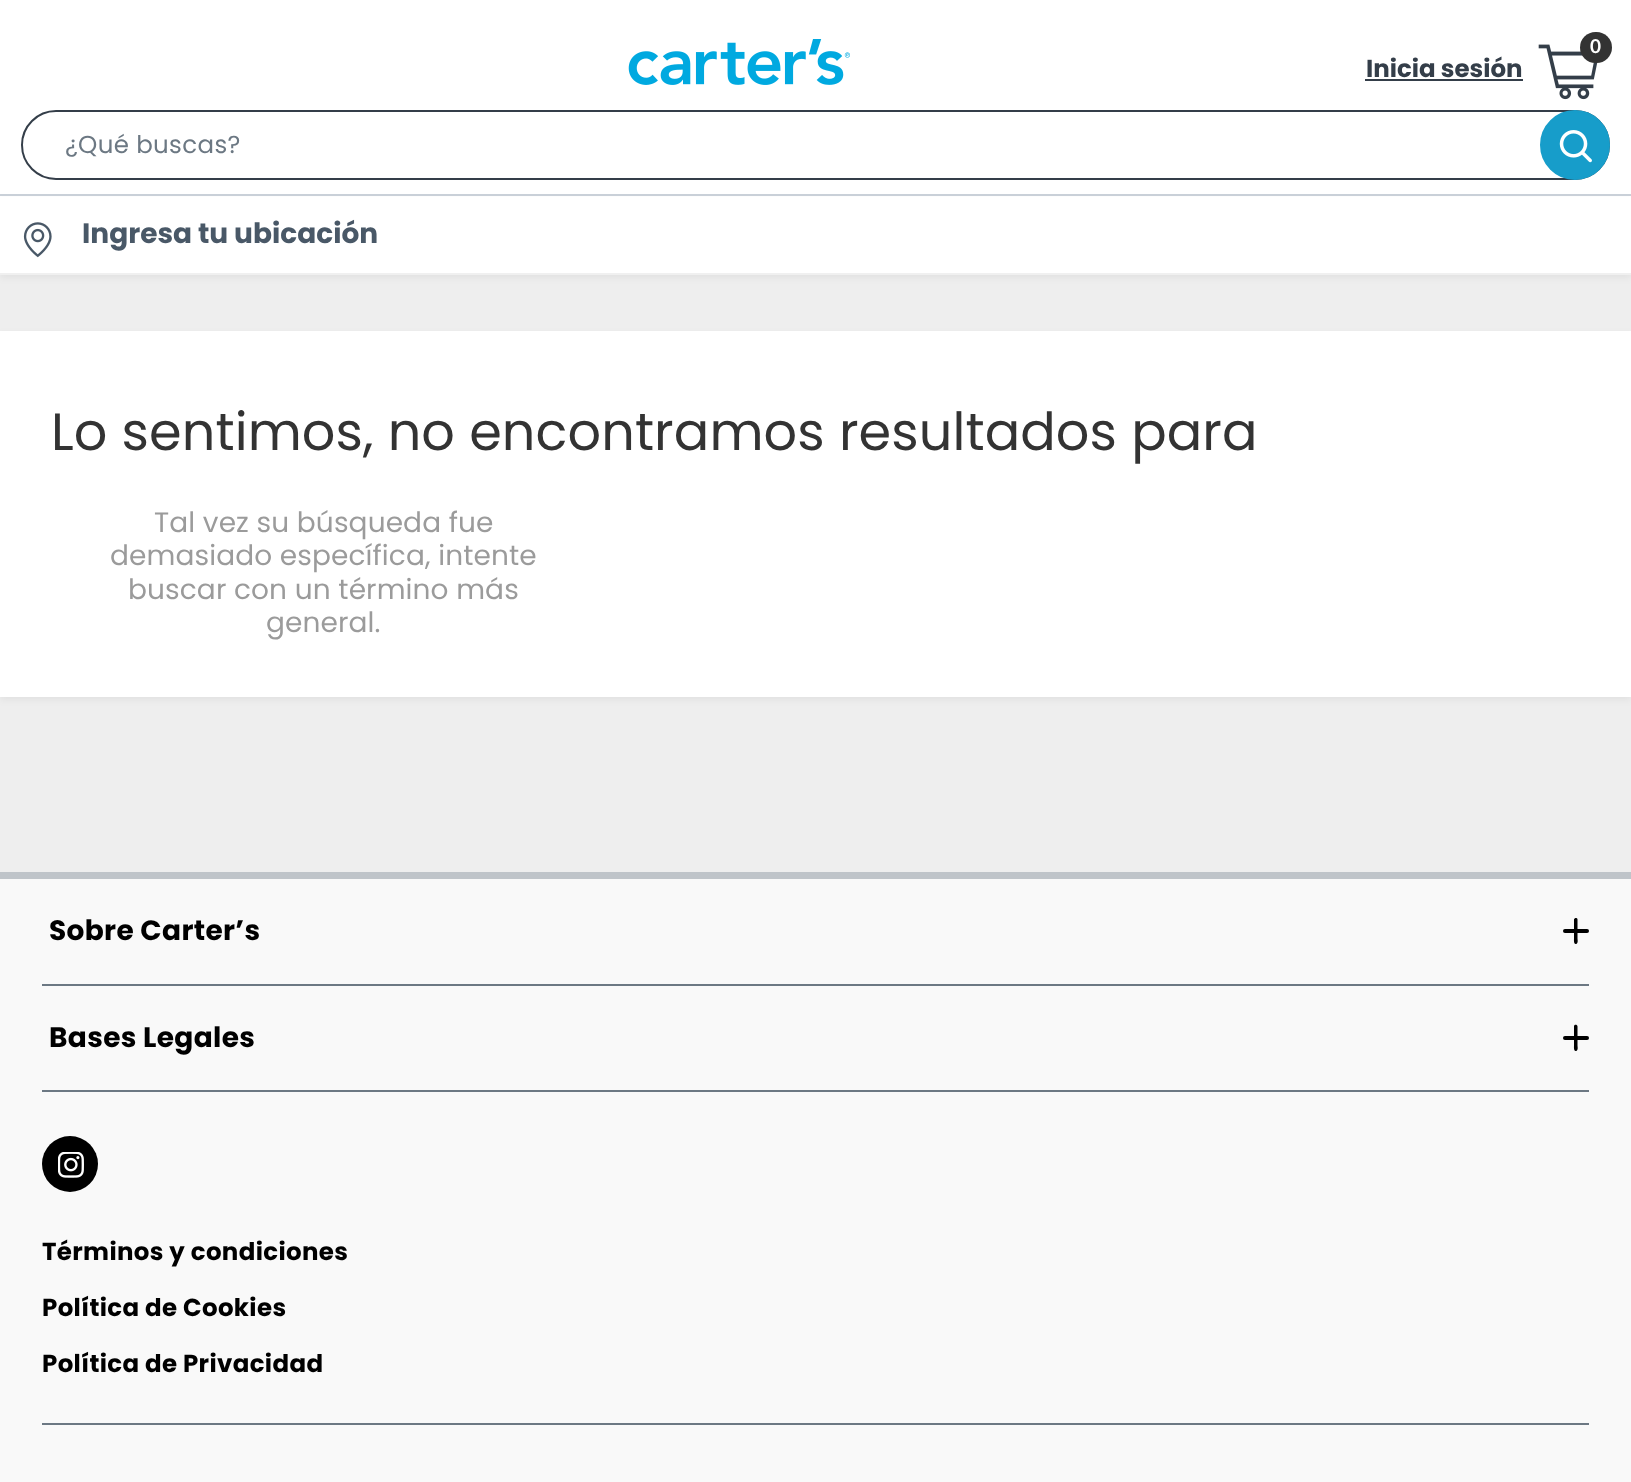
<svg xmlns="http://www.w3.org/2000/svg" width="1631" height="1482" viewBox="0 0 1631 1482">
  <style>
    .t1 { font: bold 19px Lato; fill: #fff; }
    .t2 { font: bold 24.5px Poppins; fill: #343e49; }
    .t3 { font: 24.5px Poppins; letter-spacing: 0.35px; fill: #6c7883; }
    .t4 { font: bold 28px Poppins; fill: #495867; }
    .t5 { font: 52.5px Poppins; letter-spacing: 0.1px; fill: #333; }
    .t6 { font: 28px Poppins; letter-spacing: 0.1px; fill: #9b9b9b; }
    .t7 { font: bold 28px Poppins; letter-spacing: 0.35px; fill: #000; }
    .t8 { font: bold 24.5px Poppins; letter-spacing: 0.35px; fill: #000; }
  </style>
  <rect width="100%" height="100%" fill="#fff"/>
  <image x="628" y="39" width="222" height="46" href="images/1.png"/>
  <image x="1538" y="44" width="60" height="56" href="images/2.png"/>
  <rect x="1580" y="32" width="32" height="31" rx="15.5" fill="#333"/>
  <text x="1590" y="53" class="t1">0</text>
  <text x="1366" y="77" class="t2">Inicia sesión</text>
  <rect x="1365" y="79" width="158" height="2" fill="#343e49"/>
  <rect x="22" y="111" width="1587" height="68" rx="34" fill="none" stroke="#343e49" stroke-width="2"/>
  <text x="65" y="153" class="t3">¿Qué buscas?</text>
  <circle cx="1575" cy="145" r="34" fill="#179dca" stroke="#179dca" stroke-width="2"/>
  <image x="1559" y="130" width="33" height="33" href="images/3.png"/>
  <rect x="0" y="194" width="1631" height="2" fill="#cad1d9"/>
  <rect x="0" y="275" width="1631" height="597" fill="#eee"/>
  <rect x="0" y="200" width="1631" height="78" fill="#0000000d" filter="blur(3.5px)"/>
  <rect x="0" y="197" width="1631" height="76" fill="#fff"/>
  <rect x="0" y="273" width="1631" height="2" fill="#f0f0f0"/>
  <image x="23" y="222" width="29" height="36" href="images/4.png"/>
  <text x="82" y="243" class="t4">Ingresa tu ubicación</text>
  <rect x="0" y="334" width="1631" height="366" fill="#0000000d" filter="blur(3.5px)"/>
  <rect x="0" y="331" width="1631" height="366" fill="#fff"/>
  <text x="51" y="450" class="t5">Lo sentimos, no encontramos resultados para</text>
  <text x="154" y="532" class="t6">Tal vez su búsqueda fue</text>
  <text x="110" y="565" class="t6">demasiado específica, intente</text>
  <text x="128" y="599" class="t6">buscar con un término más</text>
  <text x="266" y="632" class="t6">general.</text>
  <rect x="0" y="879" width="1631" height="603" fill="#f9f9f9"/>
  <rect x="0" y="872" width="1631" height="7" fill="#bfc4c9"/>
  <text x="49" y="940" class="t7">Sobre Carter’s</text>
  <rect x="1563" y="929" width="26" height="4" rx="2" fill="#000"/>
  <path d="M1577.5 919.5V938.5C1577.5 939.5 1578.5 943.5 1576 944C1573.5 944.5 1574 939.5 1574 938.5V919.5C1574.5 917.5 1577.5 917.5 1577.5 919.5Z" fill="#000"/>
  <rect x="42" y="984" width="1547" height="2" fill="#6c7883"/>
  <text x="49" y="1047" class="t7">Bases Legales</text>
  <rect x="1563" y="1036" width="26" height="4" rx="2" fill="#000"/>
  <path d="M1577.5 1026.5V1045.5C1577.5 1046.5 1578.5 1050.5 1576 1051C1573.5 1051.5 1574 1046.5 1574 1045.5V1026C1574.5 1024 1577.5 1024.5 1577.5 1026.5Z" fill="#000"/>
  <rect x="42" y="1090" width="1547" height="2" fill="#6c7883"/>
  <circle cx="70" cy="1164" r="28" fill="#000"/>
  <image x="58" y="1152" width="26" height="26" href="images/5.png"/>
  <text x="42" y="1260" class="t8">Términos y condiciones</text>
  <text x="42" y="1316" class="t8">Política de Cookies</text>
  <text x="42" y="1372" class="t8">Política de Privacidad</text>
  <rect x="42" y="1423" width="1547" height="2" fill="#6c7883"/>
</svg>
